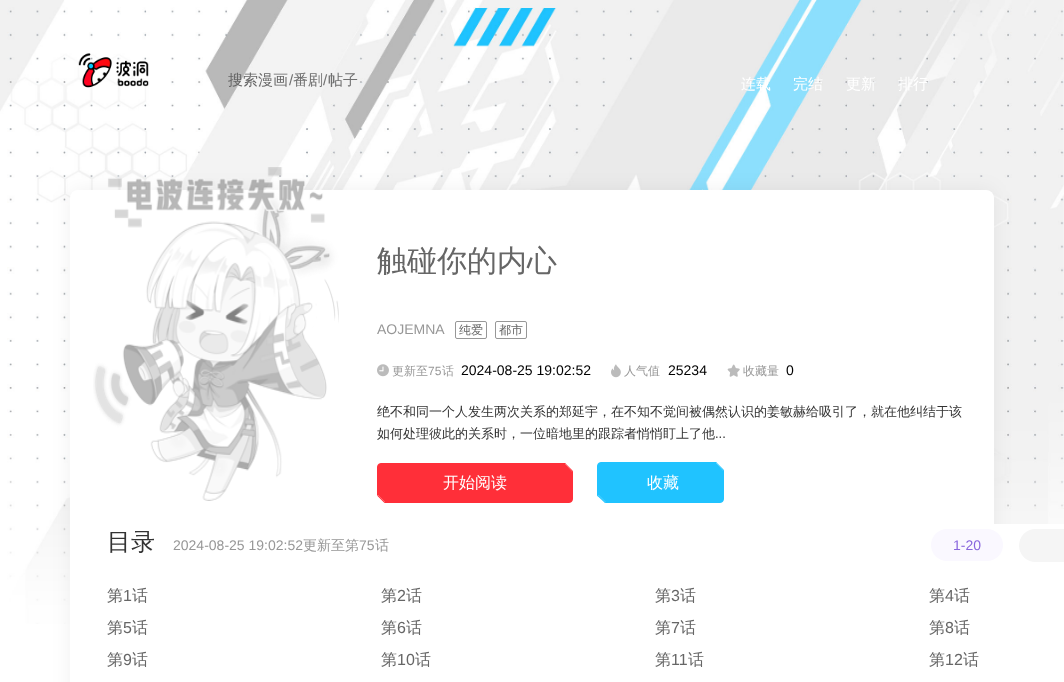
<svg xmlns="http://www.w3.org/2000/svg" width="1064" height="682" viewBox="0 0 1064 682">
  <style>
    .t1 { font: 500 15px WenQuanYi Zen Hei; fill: #666; }
    .t2 { font: 15px Liberation Sans; fill: #707070; }
    .t3 { font: 500 15px WenQuanYi Zen Hei; fill: #707070; }
    .t4 { font: 500 15px WenQuanYi Zen Hei; fill: #fff; }
    .t5 { font: 500 30px WenQuanYi Zen Hei; fill: #666; }
    .t6 { font: 14px Liberation Sans; fill: #979797; }
    .t7 { font: 500 12px WenQuanYi Zen Hei; fill: #666; }
    .t8 { font: 500 12px WenQuanYi Zen Hei; fill: #979797; }
    .t9 { font: 12px Liberation Sans; fill: #979797; }
    .t10 { font: 14px Liberation Sans; fill: #000; }
    .t11 { font: 500 13px WenQuanYi Zen Hei; fill: #333; }
    .t12 { font: 13px Liberation Sans; fill: #333; }
    .t13 { font: 500 16px WenQuanYi Zen Hei; fill: #fff; }
    .t14 { font: 500 24px WenQuanYi Zen Hei; fill: #333; }
    .t15 { font: 500 14px WenQuanYi Zen Hei; fill: #979797; }
    .t16 { font: 14px Liberation Sans; fill: #86d; }
    .t17 { font: 500 16px WenQuanYi Zen Hei; fill: #666; }
    .t18 { font: 16px Liberation Sans; fill: #666; }
  </style>
  <rect width="100%" height="100%" fill="#fff"/>
  <image x="0" y="0" width="1064" height="624" href="images/1.png"/>
  <image x="78" y="53" width="71" height="35" href="images/2.png"/>
  <text x="228" y="85" class="t1">搜索漫画</text>
  <text x="289" y="85" class="t2">/</text>
  <text x="293" y="85" class="t3">番剧</text>
  <text x="323" y="85" class="t2">/</text>
  <text x="328" y="85" class="t3">帖子</text>
  <text x="741" y="89" class="t4">连载</text>
  <text x="793" y="89" class="t4">完结</text>
  <text x="846" y="89" class="t4">更新</text>
  <text x="898" y="89" class="t4">排行</text>
  <rect x="70" y="190" width="924" height="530" rx="8" fill="#0000000f" filter="blur(10px)"/>
  <rect x="70" y="190" width="924" height="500" rx="8" fill="#fff"/>
  <image x="93" y="167" width="246" height="334" href="images/3.png"/>
  <text x="377" y="271" class="t5">触碰你的内心</text>
  <text x="377" y="334" class="t6">AOJEMNA</text>
  <rect x="455.5" y="321.5" width="31" height="17" rx="1.5" fill="none" stroke="#979797"/>
  <text x="459" y="334" class="t7">纯爱</text>
  <rect x="495.5" y="321.5" width="31" height="17" rx="1.5" fill="none" stroke="#979797"/>
  <text x="499" y="334" class="t7">都市</text>
  <image x="377" y="364" width="12" height="13" href="images/4.png"/>
  <text x="392" y="375" class="t8">更新至</text>
  <text x="428" y="375" class="t9">75</text>
  <text x="442" y="375" class="t8">话</text>
  <text x="461" y="375" class="t10">2024-08-25 19:02:52</text>
  <image x="611" y="364" width="10" height="14" href="images/5.png"/>
  <text x="624" y="375" class="t8">人气值</text>
  <text x="668" y="375" class="t10">25234</text>
  <image x="727" y="364" width="13" height="13" href="images/6.png"/>
  <text x="743" y="375" class="t8">收藏量</text>
  <text x="786" y="375" class="t10">0</text>
  <text x="377" y="416" class="t11">绝不和同一个人发生两次关系的郑延宇，在不知不觉间被偶然认识的姜敏赫给吸引了，就在他纠结于该</text>
  <text x="377" y="438" class="t11">如何处理彼此的关系时，一位暗地里的跟踪者悄悄盯上了他</text>
  <text x="715" y="438" class="t12">...</text>
  <rect x="377.5" y="463.5" width="195" height="39" rx="3.5" fill="#ff2f39" stroke="#ff2f39"/>
  <path d="M565 464L572 457L579 464L572 471.5Z" fill="#fff"/>
  <path d="M565 464L565.5 463.5L572.5 470.5L572 471.5Z" fill="#ff2f39"/>
  <text x="443" y="488" class="t13">开始阅读</text>
  <path d="M371 502L378 495L385 502L378 509.5Z" fill="#fff"/>
  <path d="M377.5 496L378 495L385 502L384.5 503Z" fill="#ff2f39"/>
  <rect x="597.5" y="462.5" width="126" height="40" rx="3.5" fill="#20c3ff" stroke="#20c3ff"/>
  <path d="M716 463L723 456L730 463L723 470.5Z" fill="#fff"/>
  <path d="M716 463L716.5 462.5L723.5 469.5L723 470.5Z" fill="#20c3ff"/>
  <text x="647" y="488" class="t13">收藏</text>
  <path d="M591.5 502L598.5 495L605.5 502L598.5 509.5Z" fill="#fff"/>
  <path d="M597.5 496L598.5 495L605.5 502L605 503Z" fill="#20c3ff"/>
  <rect x="994" y="524" width="70" height="158" fill="#fff"/>
  <text x="107" y="550" class="t14">目录</text>
  <text x="173" y="550" class="t6">2024-08-25 19:02:52</text>
  <text x="303" y="550" class="t15">更新至第</text>
  <text x="359" y="550" class="t6">75</text>
  <text x="375" y="550" class="t15">话</text>
  <rect x="931" y="529" width="72" height="32" rx="16" fill="#faf8ff"/>
  <text x="953" y="550" class="t16">1-20</text>
  <rect x="1019" y="529" width="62" height="33" rx="16.5" fill="#f5f5f5"/>
  <text x="107" y="601" class="t17">第</text>
  <text x="123" y="601" class="t18">1</text>
  <text x="132" y="601" class="t17">话</text>
  <text x="381" y="601" class="t17">第</text>
  <text x="397" y="601" class="t18">2</text>
  <text x="406" y="601" class="t17">话</text>
  <text x="655" y="601" class="t17">第</text>
  <text x="671" y="601" class="t18">3</text>
  <text x="680" y="601" class="t17">话</text>
  <text x="929" y="601" class="t17">第</text>
  <text x="945" y="601" class="t18">4</text>
  <text x="954" y="601" class="t17">话</text>
  <text x="107" y="633" class="t17">第</text>
  <text x="123" y="633" class="t18">5</text>
  <text x="132" y="633" class="t17">话</text>
  <text x="381" y="633" class="t17">第</text>
  <text x="397" y="633" class="t18">6</text>
  <text x="406" y="633" class="t17">话</text>
  <text x="655" y="633" class="t17">第</text>
  <text x="671" y="633" class="t18">7</text>
  <text x="680" y="633" class="t17">话</text>
  <text x="929" y="633" class="t17">第</text>
  <text x="945" y="633" class="t18">8</text>
  <text x="954" y="633" class="t17">话</text>
  <text x="107" y="665" class="t17">第</text>
  <text x="123" y="665" class="t18">9</text>
  <text x="132" y="665" class="t17">话</text>
  <text x="381" y="665" class="t17">第</text>
  <text x="397" y="665" class="t18">10</text>
  <text x="415" y="665" class="t17">话</text>
  <text x="655" y="665" class="t17">第</text>
  <text x="671" y="665" class="t18">11</text>
  <text x="688" y="665" class="t17">话</text>
  <text x="929" y="665" class="t17">第</text>
  <text x="945" y="665" class="t18">12</text>
  <text x="963" y="665" class="t17">话</text>
</svg>
